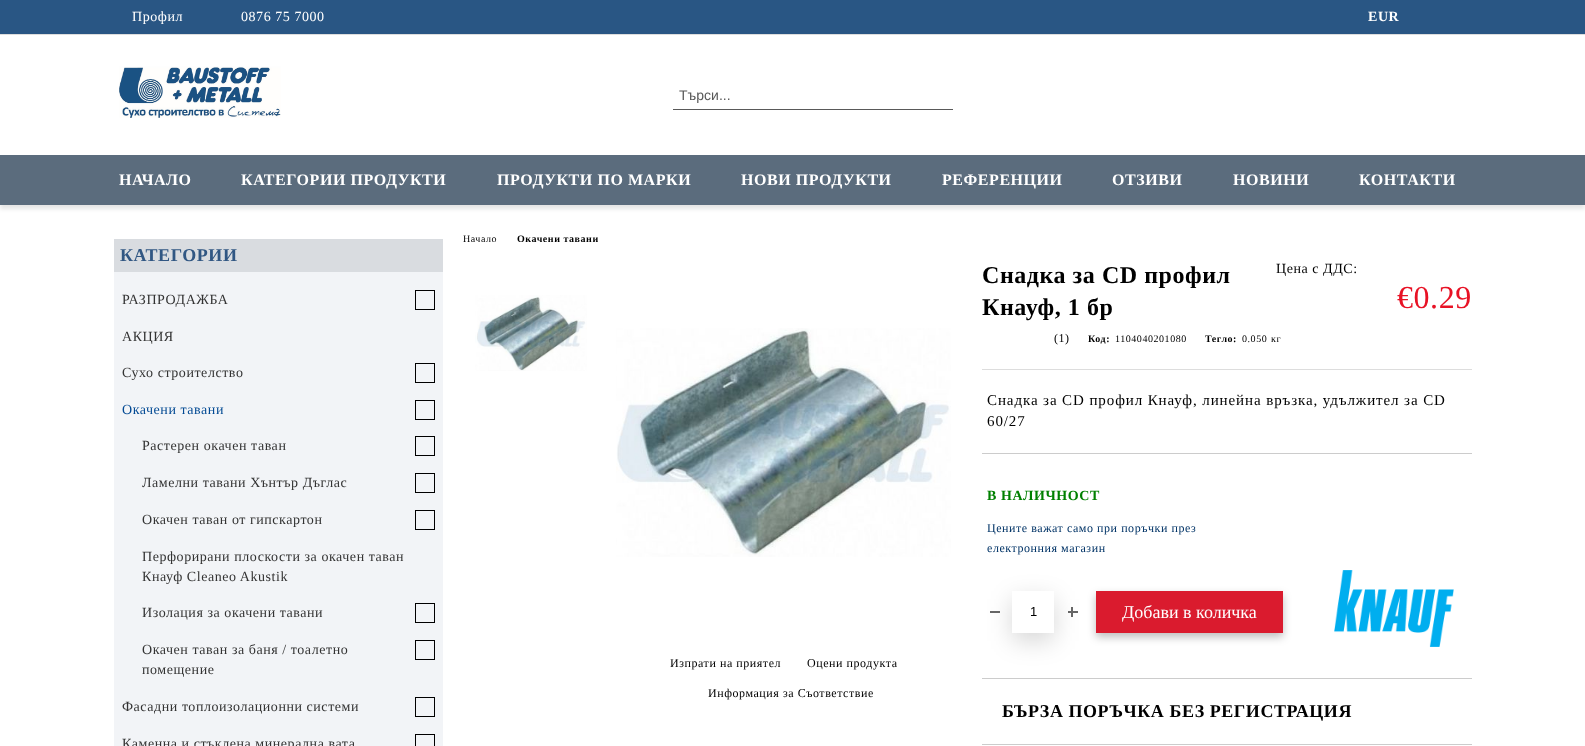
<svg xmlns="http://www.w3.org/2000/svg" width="1585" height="746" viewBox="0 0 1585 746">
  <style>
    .t1 { font: 14px Liberation Serif; letter-spacing: 0.55px; fill: #fff; }
    .t2 { font: bold 14px Liberation Serif; letter-spacing: 0.55px; fill: #fff; }
    .t3 { font: 14px Liberation Sans; fill: #595959; }
    .t4 { font: bold 16px Liberation Serif; letter-spacing: 0.55px; fill: #fff; }
    .t5 { font: bold 18px Liberation Serif; letter-spacing: 0.55px; fill: #315783; }
    .t6 { font: 14px Liberation Serif; letter-spacing: 0.55px; fill: #333; }
    .t7 { font: 14px Liberation Serif; letter-spacing: 0.55px; fill: #024993; }
    .t8 { font: 10px Liberation Serif; letter-spacing: 0.55px; fill: #000; }
    .t9 { font: bold 10px Liberation Serif; letter-spacing: 0.55px; fill: #000; }
    .t10 { font: 12px Liberation Serif; letter-spacing: 0.55px; fill: #000; }
    .t11 { font: bold 24px Liberation Serif; letter-spacing: 0.55px; fill: #000; }
    .t12 { font: 14px Liberation Serif; letter-spacing: 0.55px; fill: #000; }
    .t13 { font: 32px Liberation Serif; letter-spacing: 0.55px; fill: #e81225; }
    .t14 { font: 15px Liberation Serif; letter-spacing: 0.9px; fill: #000; }
    .t15 { font: bold 14px Liberation Serif; letter-spacing: 0.55px; fill: #008000; }
    .t16 { font: 12px Liberation Serif; letter-spacing: 0.55px; fill: #036; }
    .t17 { font: 13px Liberation Sans; fill: #000; }
    .t18 { font: 18px Liberation Serif; fill: #fff; }
    .t19 { font: bold 18px Liberation Serif; letter-spacing: 0.55px; fill: #000; }
  </style>
  <defs>
    <clipPath id="clip1"><path d="M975 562H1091V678H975ZM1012 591H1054V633H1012Z" clip-rule="evenodd"/></clipPath>
  </defs>
  <rect width="100%" height="100%" fill="#fff"/>
  <rect x="0" y="0" width="1585" height="34" fill="#295684"/>
  <rect x="0" y="34" width="1585" height="1" fill="#ddd"/>
  <text x="132" y="21" class="t1">Профил</text>
  <text x="241" y="21" class="t1">0876 75 7000</text>
  <text x="1368" y="21" class="t2">EUR</text>
  <image x="119" y="66" width="162" height="52" href="images/1.png"/>
  <rect x="673" y="109" width="280" height="1" fill="#595959"/>
  <text x="679" y="100" class="t3">Търси...</text>
  <rect x="0" y="159" width="1585" height="50" fill="#0000001a" filter="blur(2px)"/>
  <rect x="0" y="155" width="1585" height="50" fill="#5b6c7d"/>
  <text x="119" y="185" class="t4">НАЧАЛО</text>
  <text x="241" y="185" class="t4">КАТЕГОРИИ ПРОДУКТИ</text>
  <text x="497" y="185" class="t4">ПРОДУКТИ ПО МАРКИ</text>
  <text x="741" y="185" class="t4">НОВИ ПРОДУКТИ</text>
  <text x="942" y="185" class="t4">РЕФЕРЕНЦИИ</text>
  <text x="1112" y="185" class="t4">ОТЗИВИ</text>
  <text x="1233" y="185" class="t4">НОВИНИ</text>
  <text x="1359" y="185" class="t4">КОНТАКТИ</text>
  <rect x="114" y="272" width="329" height="474" fill="#f2f4f7"/>
  <rect x="114" y="239" width="329" height="33" fill="#d9dce0"/>
  <text x="120" y="261" class="t5">КАТЕГОРИИ</text>
  <text x="122" y="304" class="t6">РАЗПРОДАЖБА</text>
  <rect x="415.5" y="290.5" width="19" height="19" fill="none" stroke="#000"/>
  <text x="122" y="341" class="t6">АКЦИЯ</text>
  <text x="122" y="377" class="t6">Сухо строителство</text>
  <rect x="415.5" y="363.5" width="19" height="19" fill="none" stroke="#000"/>
  <text x="122" y="414" class="t7">Окачени тавани</text>
  <rect x="415.5" y="400.5" width="19" height="19" fill="none" stroke="#000"/>
  <text x="142" y="450" class="t6">Растерен окачен таван</text>
  <rect x="415.5" y="436.5" width="19" height="19" fill="none" stroke="#000"/>
  <text x="142" y="487" class="t6">Ламелни тавани Хънтър Дъглас</text>
  <rect x="415.5" y="473.5" width="19" height="19" fill="none" stroke="#000"/>
  <text x="142" y="524" class="t6">Окачен таван от гипскартон</text>
  <rect x="415.5" y="510.5" width="19" height="19" fill="none" stroke="#000"/>
  <text x="142" y="561" class="t6">Перфорирани плоскости за окачен таван</text>
  <text x="142" y="581" class="t6">Кнауф Cleaneo Akustik</text>
  <text x="142" y="617" class="t6">Изолация за окачени тавани</text>
  <rect x="415.5" y="603.5" width="19" height="19" fill="none" stroke="#000"/>
  <text x="142" y="654" class="t6">Окачен таван за баня / тоалетно</text>
  <text x="142" y="674" class="t6">помещение</text>
  <rect x="415.5" y="640.5" width="19" height="19" fill="none" stroke="#000"/>
  <text x="122" y="711" class="t6">Фасадни топлоизолационни системи</text>
  <rect x="415.5" y="697.5" width="19" height="19" fill="none" stroke="#000"/>
  <text x="122" y="748" class="t6">Каменна и стъклена минерална вата</text>
  <rect x="415.5" y="734.5" width="19" height="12" fill="none" stroke="#000"/>
  <text x="463" y="242" class="t8">Начало</text>
  <text x="517" y="242" class="t9">Окачени тавани</text>
  <image x="475" y="295" width="112" height="76" href="images/2.png"/>
  <image x="616" y="328" width="335" height="229" href="images/3.png"/>
  <text x="670" y="667" class="t10">Изпрати на приятел</text>
  <text x="807" y="667" class="t10">Оцени продукта</text>
  <text x="708" y="697" class="t10">Информация за Съответствие</text>
  <text x="982" y="283" class="t11">Снадка за CD профил</text>
  <text x="982" y="315" class="t11">Кнауф, 1 бр</text>
  <text x="1276" y="273" class="t12">Цена с ДДС:</text>
  <text x="1397" y="308" class="t13">€0.29</text>
  <rect x="982" y="369" width="490" height="1" fill="#ddd"/>
  <text x="1054" y="342" class="t10">(1)</text>
  <text x="1088" y="342" class="t9">Код:</text>
  <text x="1115" y="342" class="t8">1104040201080</text>
  <text x="1205" y="342" class="t9">Тегло:</text>
  <text x="1242" y="342" class="t8">0.050</text>
  <text x="1271" y="342" class="t8">кг</text>
  <text x="987" y="405" class="t14">Снадка за CD профил Кнауф, линейна връзка, удължител за CD</text>
  <text x="987" y="426" class="t14">60/27</text>
  <rect x="982" y="453" width="490" height="1" fill="#ccc"/>
  <text x="987" y="500" class="t15">В НАЛИЧНОСТ</text>
  <text x="987" y="532" class="t16">Цените важат само при поръчки през</text>
  <text x="987" y="552" class="t16">електронния магазин</text>
  <g clip-path="url(#clip1)">
    <rect x="1012" y="599" width="42" height="42" fill="#00000029" filter="blur(12px)"/>
  </g>
  <rect x="990" y="611" width="10" height="2" fill="#666"/>
  <text x="1030" y="616" class="t17">1</text>
  <rect x="1068" y="611" width="10" height="2" fill="#666"/>
  <rect x="1071" y="607" width="2" height="10" fill="#666"/>
  <rect x="1096" y="595" width="187" height="42" fill="#00000042" filter="blur(4px)"/>
  <rect x="1096" y="591" width="187" height="42" fill="#da1b2e"/>
  <text x="1122" y="618" class="t18">Добави в количка</text>
  <image x="1334" y="570" width="120" height="77" href="images/4.png"/>
  <rect x="982" y="678" width="490" height="1" fill="#ccc"/>
  <text x="1002" y="717" class="t19">БЪРЗА ПОРЪЧКА БЕЗ РЕГИСТРАЦИЯ</text>
  <rect x="982" y="744" width="490" height="1" fill="#ccc"/>
</svg>
